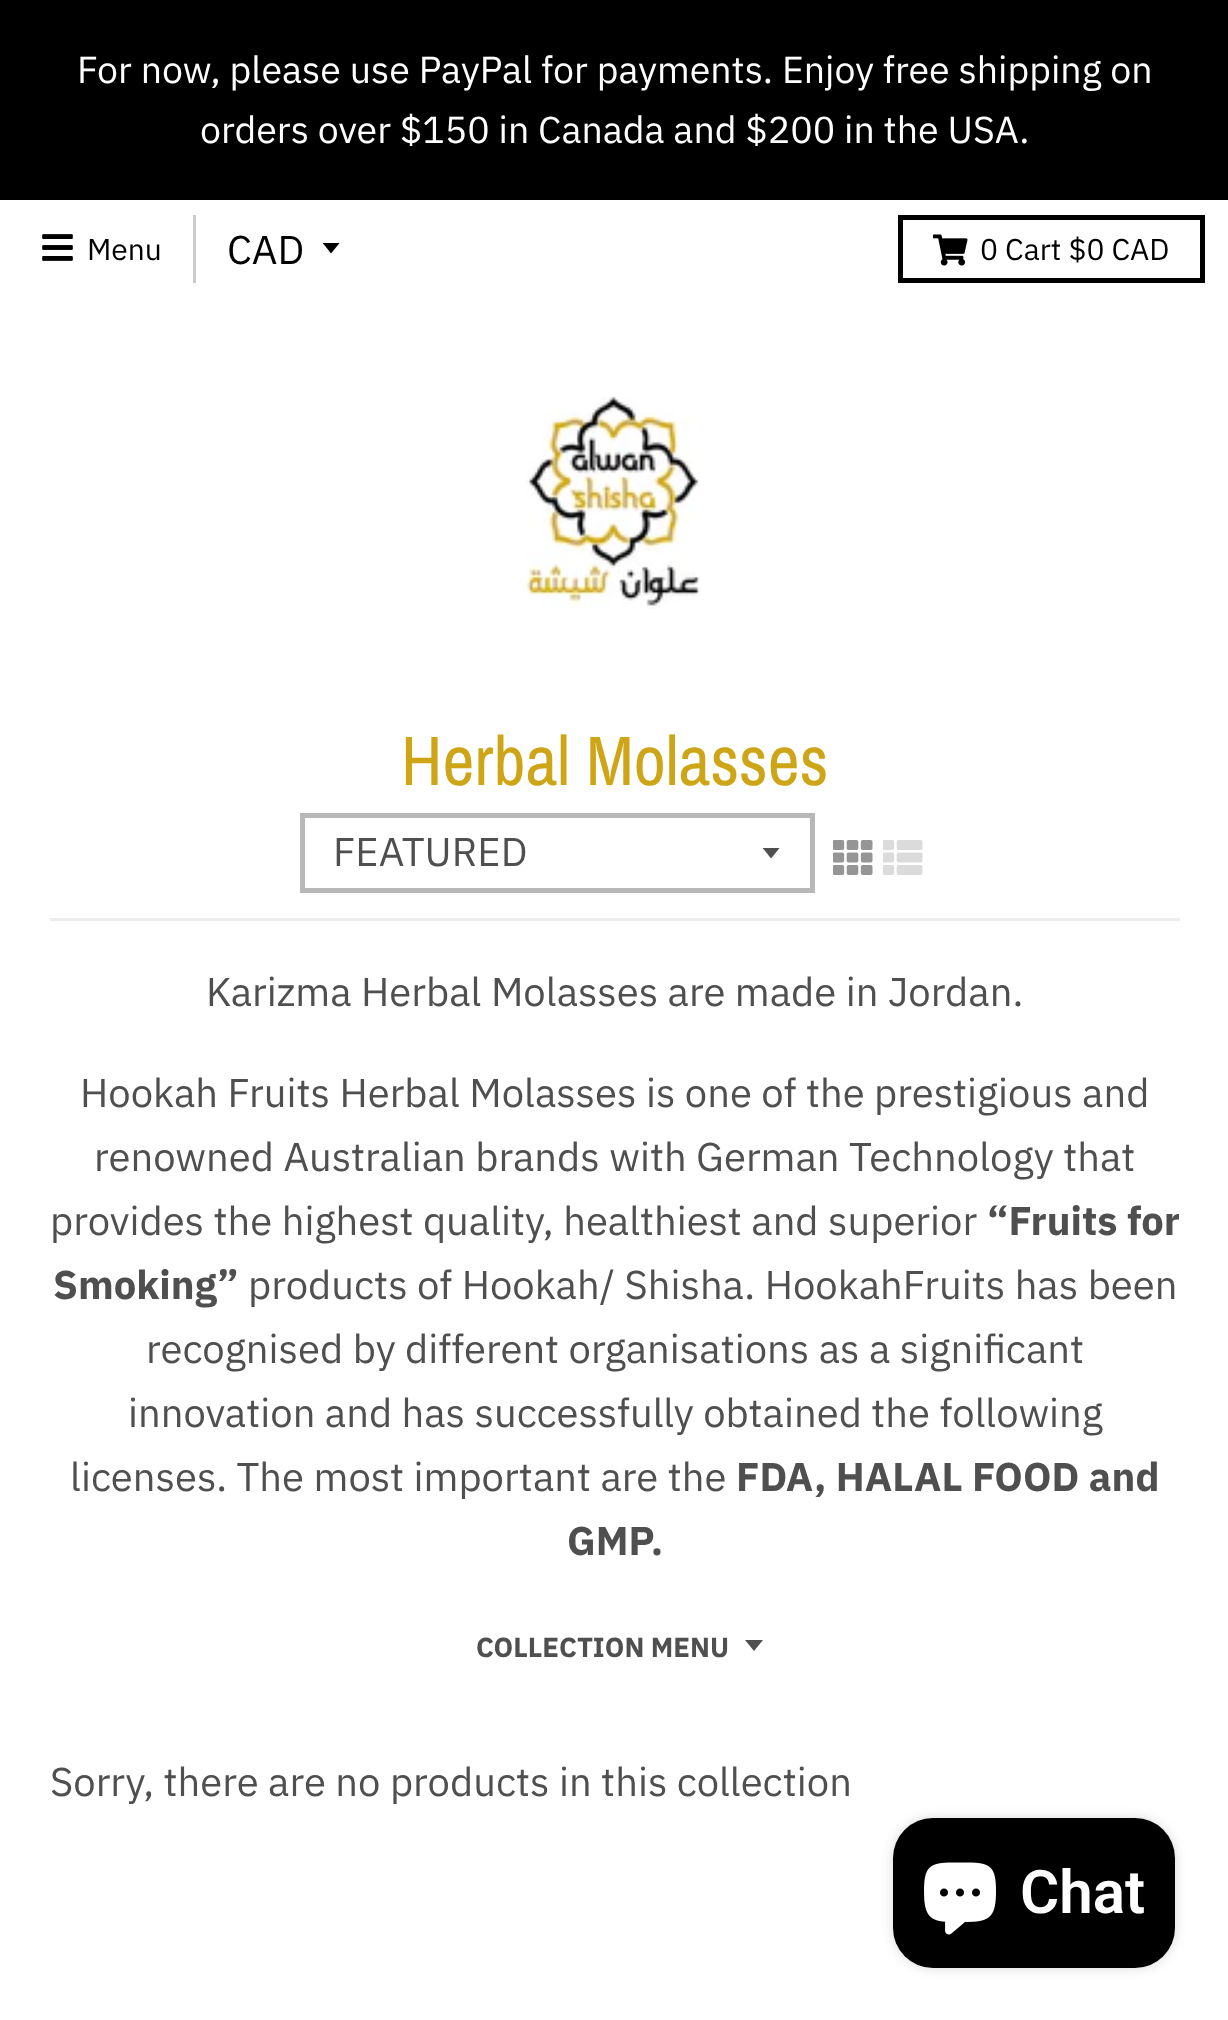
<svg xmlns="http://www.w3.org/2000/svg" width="1228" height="2020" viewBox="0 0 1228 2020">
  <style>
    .t1 { font: 37.5px IBM Plex Sans; fill: #fff; }
    .t2 { font: 30px IBM Plex Sans; fill: #000; }
    .t3 { font: 40px IBM Plex Sans; fill: #000; }
    .t4 { font: 70px Archivo Narrow; fill: #cda516; }
    .t5 { font: 40px IBM Plex Sans; fill: #4f4f4f; }
    .t6 { font: bold 40px IBM Plex Sans; fill: #4f4f4f; }
    .t7 { font: bold 27.5px IBM Plex Sans; fill: #4f4f4f; }
    .t8 { font: 600 60px Roboto; fill: #fff; }
  </style>
  <defs>
    <clipPath id="clip1"><rect x="323" y="243" width="20" height="12"/></clipPath>
    <clipPath id="clip2"><rect x="763" y="848" width="20" height="12"/></clipPath>
  </defs>
  <rect width="100%" height="100%" fill="#fff"/>
  <rect x="0" y="0" width="1228" height="200" fill="#000"/>
  <text x="77" y="83" class="t1">For now, please use PayPal for payments. Enjoy free shipping on</text>
  <text x="200" y="143" class="t1">orders over $150 in Canada and $200 in the USA.</text>
  <rect x="193" y="215" width="3" height="68" fill="#ccc"/>
  <image x="42" y="234" width="31" height="27" href="images/1.png"/>
  <text x="87" y="260" class="t2">Menu</text>
  <g clip-path="url(#clip1)">
    <path d="M322.5 242.5L331 253.5L340 242.5Z" fill="#000"/>
  </g>
  <text x="227" y="264" class="t3">CAD</text>
  <rect x="900.5" y="217.5" width="302" height="63" fill="none" stroke="#000" stroke-width="5"/>
  <image x="933" y="234" width="35" height="32" href="images/2.png"/>
  <text x="980" y="260" class="t2">0 Cart $0 CAD</text>
  <image x="524" y="396" width="177" height="213" href="images/3.png"/>
  <rect x="50" y="918" width="1130" height="3" fill="#ededed"/>
  <text x="401" y="785" class="t4">Herbal Molasses</text>
  <g clip-path="url(#clip2)">
    <path d="M762.5 847.5L771 858.5L780 847.5Z" fill="#4f4f4f"/>
  </g>
  <rect x="302.5" y="815.5" width="510" height="75" fill="none" stroke="#b8b8b8" stroke-width="5"/>
  <text x="333" y="866" class="t5">FEATURED</text>
  <image x="833" y="840" width="40" height="35" href="images/4.png"/>
  <image x="883" y="840" width="40" height="35" href="images/5.png"/>
  <text x="206" y="1006" class="t5">Karizma Herbal Molasses are made in Jordan.</text>
  <text x="80" y="1107" class="t5">Hookah Fruits Herbal Molasses is one of the prestigious and</text>
  <text x="94" y="1171" class="t5">renowned Australian brands with German Technology that</text>
  <text x="50" y="1235" class="t5">provides the highest quality, healthiest and superior</text>
  <text x="987" y="1235" class="t6">“Fruits for</text>
  <text x="53" y="1299" class="t6">Smoking”</text>
  <text x="248" y="1299" class="t5">products of Hookah/ Shisha. HookahFruits has been</text>
  <text x="146" y="1363" class="t5">recognised by different organisations as a significant</text>
  <text x="128" y="1427" class="t5">innovation and has successfully obtained the following</text>
  <text x="70" y="1491" class="t5">licenses. The most important are the</text>
  <text x="736" y="1491" class="t6">FDA, HALAL FOOD and</text>
  <text x="567" y="1555" class="t6">GMP.</text>
  <text x="476" y="1657" class="t7">COLLECTION MENU</text>
  <path d="M745 1640L754 1651L763 1640Z" fill="#4f4f4f"/>
  <text x="50" y="1796" class="t5">Sorry, there are no products in this collection</text>
  <rect x="893" y="1818" width="282" height="150" rx="40" fill="#00000026" filter="blur(6px)"/>
  <rect x="893" y="1818" width="282" height="150" rx="40" fill="#000"/>
  <image x="924" y="1862" width="72" height="73" href="images/6.png"/>
  <text x="1020" y="1913" class="t8">Chat</text>
</svg>
